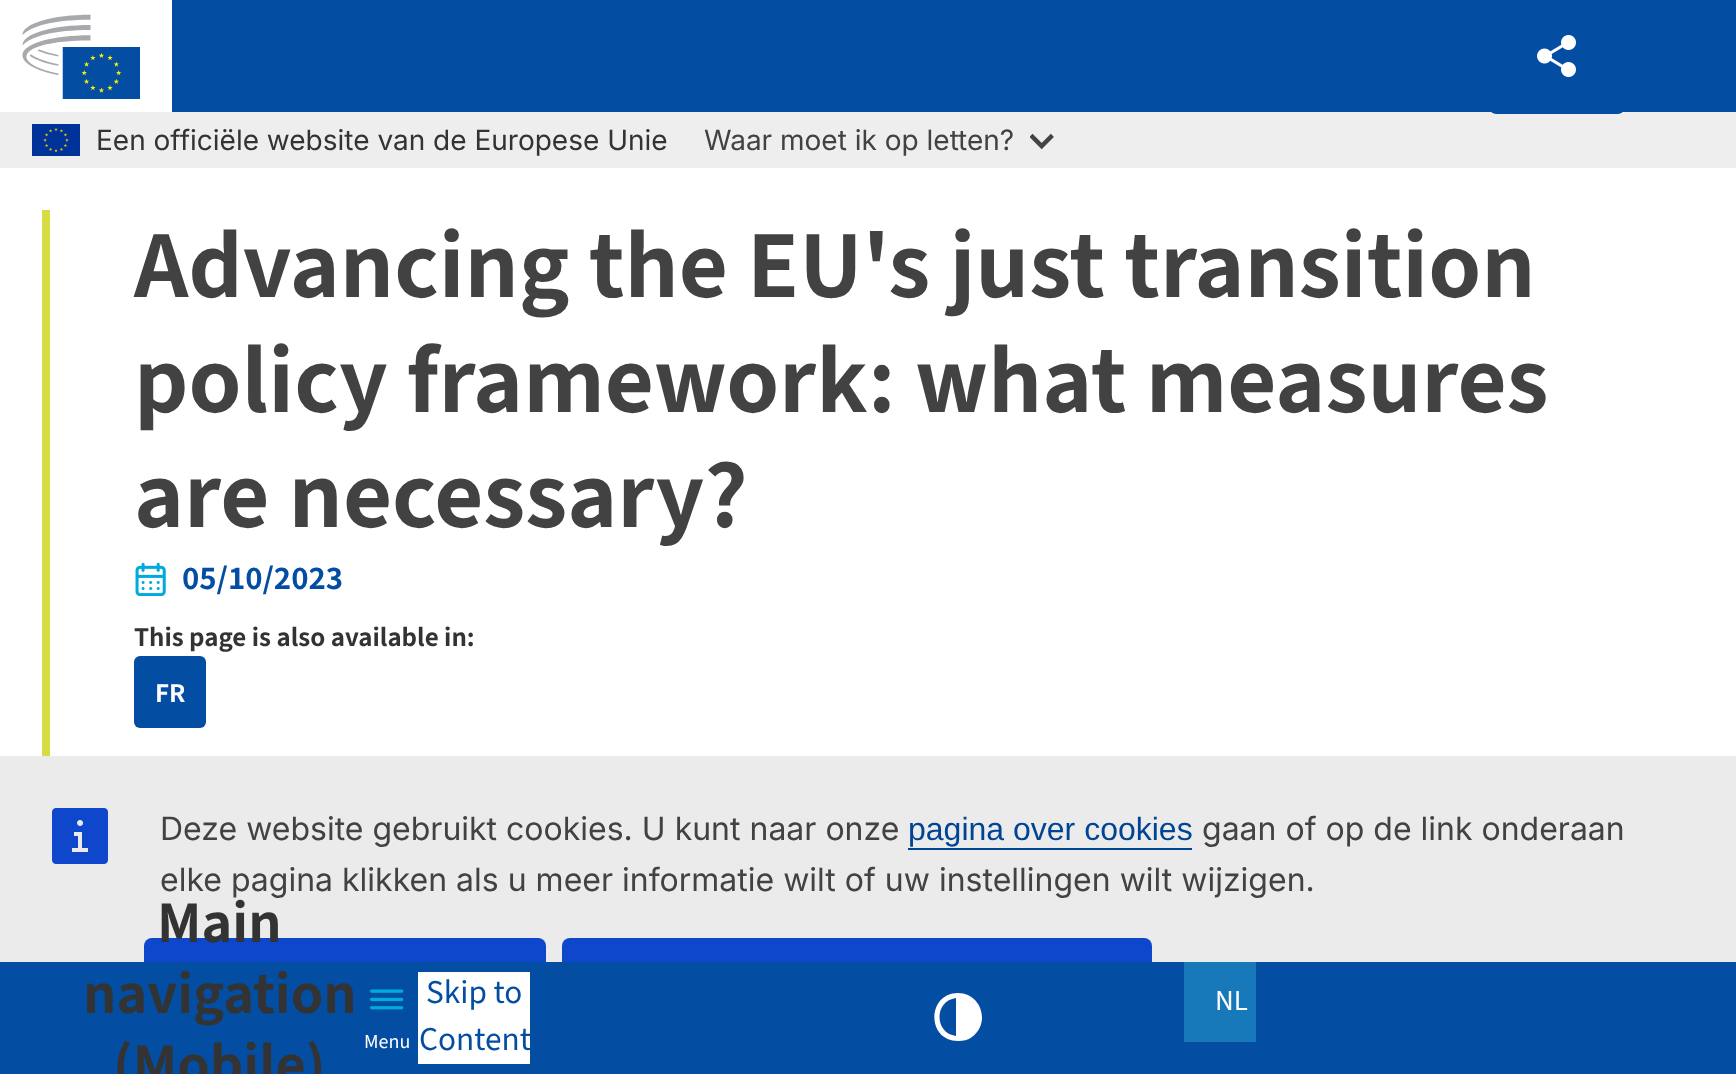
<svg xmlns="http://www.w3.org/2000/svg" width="1736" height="1074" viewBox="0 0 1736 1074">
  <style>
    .t1 { font: 28px Inter; fill: #333; }
    .t2 { font: 28px Inter; fill: #424242; }
    .t3 { font: 600 96px 'Source Sans 3'; fill: #424242; }
    .t4 { font: 600 33.25px 'Source Sans 3'; fill: #034ea2; }
    .t5 { font: 600 27.25px 'Source Sans 3'; fill: #333; }
    .t6 { font: 600 27.25px 'Source Sans 3'; fill: #fff; }
    .t7 { font: 600 59px 'Source Sans 3'; fill: #333; }
    .t8 { font: 20px 'Source Sans 3'; fill: #fff; }
    .t9 { font: 33.25px 'Source Sans 3'; fill: #034ea2; }
    .t10 { font: 29px 'Source Sans 3'; fill: #fff; }
    .t11 { font: 32px Inter; fill: #424242; }
    .t12 { font: 32px Liberation Sans; fill: #004494; }
  </style>
  <rect width="100%" height="100%" fill="#fff"/>
  <image x="22" y="14" width="118" height="85" href="images/1.png"/>
  <rect x="172" y="0" width="1564" height="112" fill="#034ea2"/>
  <rect x="0" y="112" width="1736" height="56" fill="#eee"/>
  <image x="32" y="124" width="48" height="32" href="images/2.png"/>
  <text x="96" y="150" class="t1">Een officiële website van de Europese Unie</text>
  <text x="704" y="150" class="t2">Waar moet ik op letten?</text>
  <image x="1030" y="133" width="24" height="17" href="images/3.png"/>
  <rect x="42" y="210" width="8" height="546" fill="#d7dc44"/>
  <text x="134" y="297" class="t3">Advancing the EU's just transition</text>
  <text x="134" y="412" class="t3">policy framework: what measures</text>
  <text x="134" y="527" class="t3">are necessary?</text>
  <rect x="1490" y="0" width="134" height="114" rx="6" fill="#034ea2"/>
  <image x="1537" y="35" width="39" height="42" href="images/4.png"/>
  <image x="135" y="562" width="31" height="35" href="images/5.png"/>
  <text x="182" y="589" class="t4">05/10/2023</text>
  <text x="134" y="646" class="t5">This page is also available in:</text>
  <rect x="134" y="656" width="72" height="72" rx="6" fill="#034ea2"/>
  <text x="155" y="702" class="t6">FR</text>
  <rect x="0" y="756" width="1736" height="206" fill="#ebebeb"/>
  <rect x="144" y="938" width="402" height="88" rx="8" fill="#0e47cb"/>
  <rect x="562" y="938" width="590" height="88" rx="8" fill="#0e47cb"/>
  <rect x="0" y="962" width="1736" height="112" fill="#034ea2"/>
  <text x="157" y="942" class="t7">Main</text>
  <text x="83" y="1013" class="t7">navigation</text>
  <text x="113" y="1084" class="t7">(Mobile)</text>
  <image x="370" y="989" width="34" height="21" href="images/6.png"/>
  <text x="364" y="1048" class="t8">Menu</text>
  <rect x="418" y="972" width="112" height="92" fill="#fff"/>
  <text x="426" y="1003" class="t9">Skip to</text>
  <text x="419" y="1050" class="t9">Content</text>
  <path d="M958 993C927 993 926 1041 958 1041C963 1041 968 1040 972 1037C991 1023 981 993 958 993ZM956 1036C934 1033 934 1001 956 998Z" fill="#fff"/>
  <rect x="1184" y="962" width="72" height="80" fill="#1779ba"/>
  <text x="1215" y="1010" class="t10">NL</text>
  <image x="52" y="808" width="56" height="56" href="images/7.png"/>
  <text x="160" y="840" class="t11">Deze website gebruikt cookies. U kunt naar onze</text>
  <text x="908" y="840" class="t12">pagina over cookies</text>
  <rect x="908" y="848" width="284" height="2" fill="#004494"/>
  <text x="1202" y="840" class="t11">gaan of op de link onderaan</text>
  <text x="160" y="891" class="t11">elke pagina klikken als u meer informatie wilt of uw instellingen wilt wijzigen.</text>
</svg>
